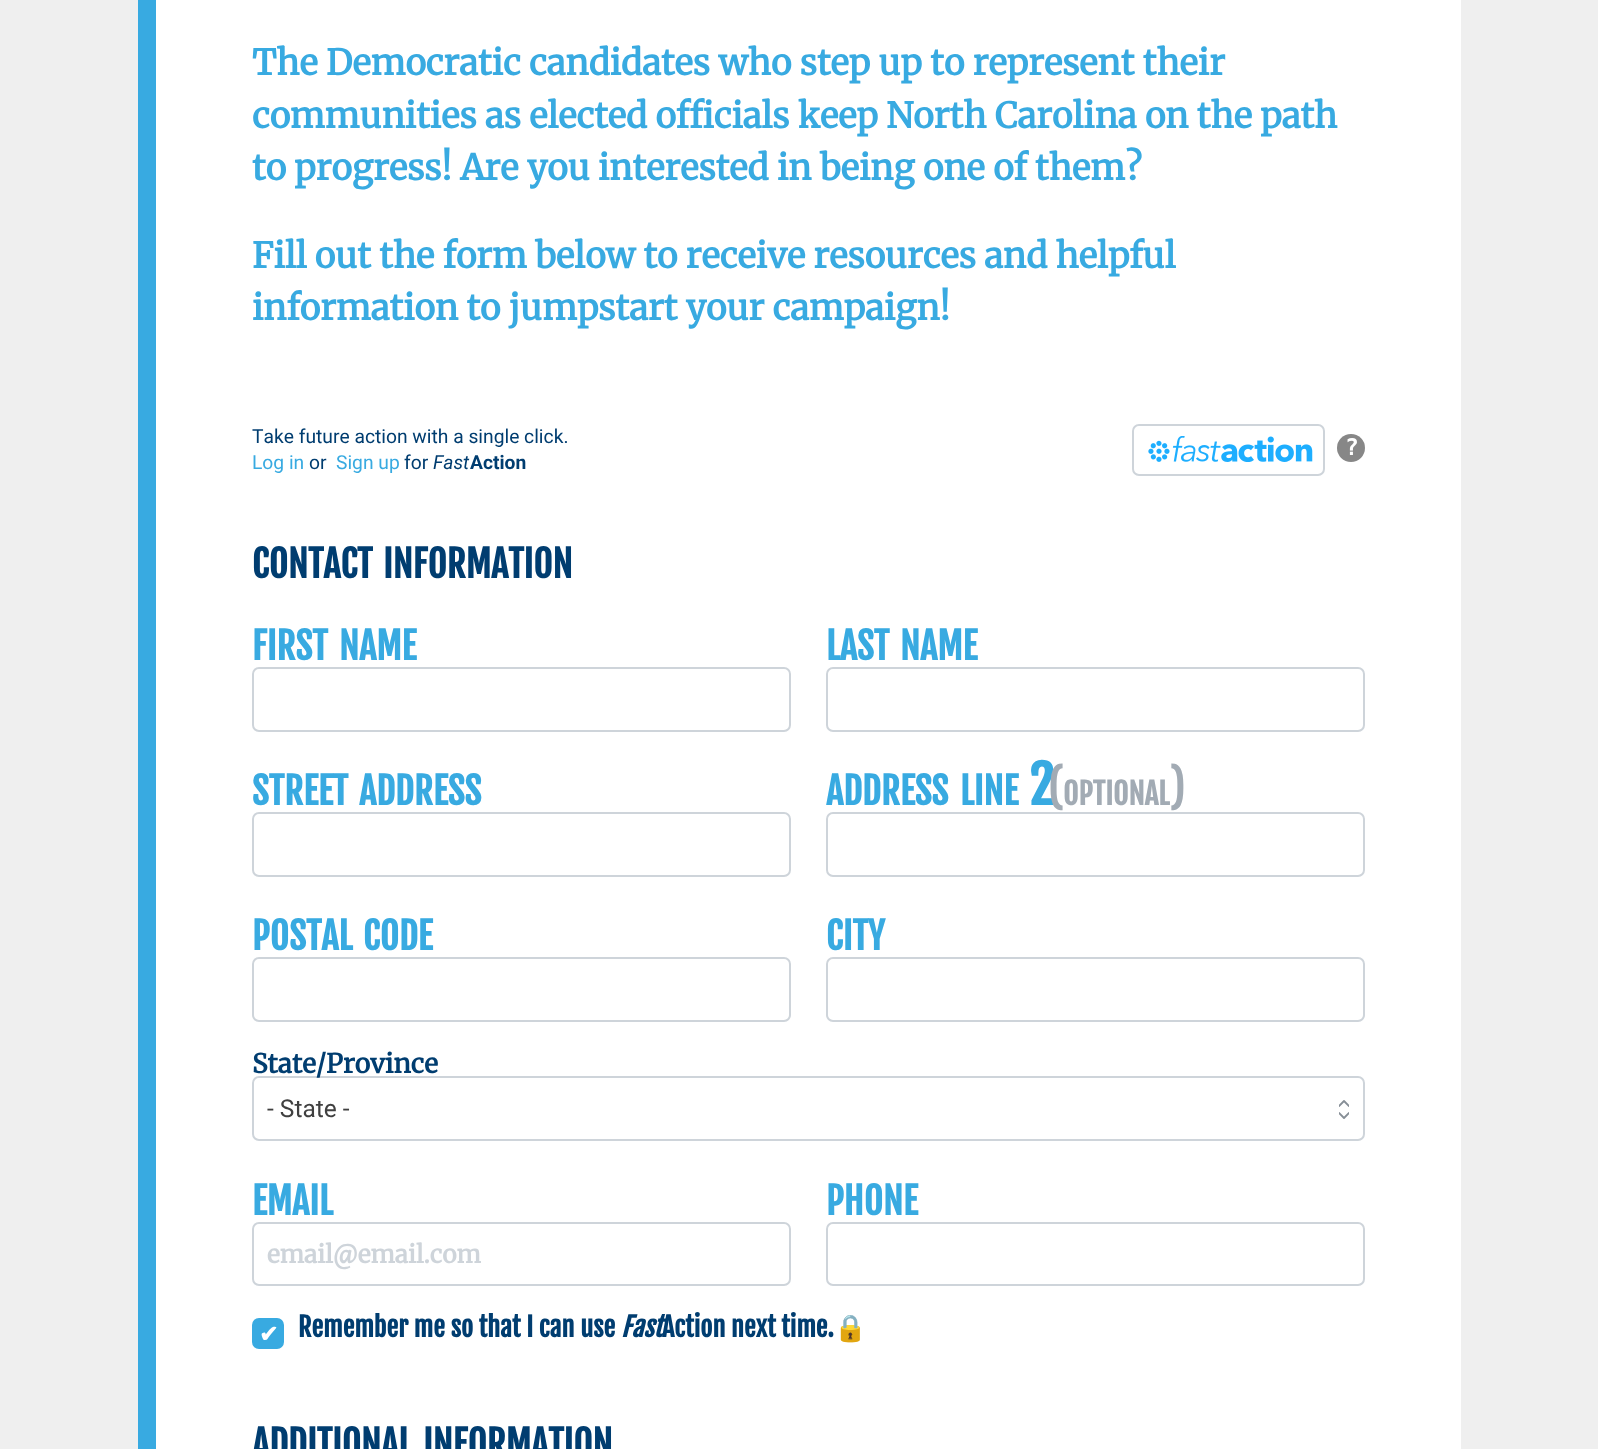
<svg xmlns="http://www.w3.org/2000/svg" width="1598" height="1449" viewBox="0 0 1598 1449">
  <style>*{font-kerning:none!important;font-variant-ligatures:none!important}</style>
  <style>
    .t1 { font: bold 35px Merriweather; fill: #38aae1; }
    .t2 { font: 19.25px Roboto; fill: #003d70; }
    .t3 { font: 19.25px Roboto; fill: #38aae1; }
    .t4 { font: italic 19.25px Roboto; fill: #003d70; }
    .t5 { font: bold 19.25px Roboto; fill: #003d70; }
    .t6 { font: bold 23px DejaVu Sans Mono; fill: #fff; }
    .t7 { font: bold 36.75px Fjalla One; fill: #003d70; }
    .t8 { font: bold 36.75px Fjalla One; fill: #38aae1; }
    .t9 { font: bold 52px Fjalla One; fill: #38aae1; }
    .t10 { font: bold 42px Fjalla One; fill: #a2abb4; }
    .t11 { font: bold 29.5px Fjalla One; fill: #a2abb4; }
    .t12 { font: bold 26.25px Merriweather; fill: #003d70; }
    .t13 { font: 24.5px Roboto; fill: #404040; }
    .t14 { font: bold 24.5px Merriweather; fill: #ced4da; }
    .t15 { font: bold 26.25px Fjalla One; fill: #003d70; }
    .t16 { font: italic bold 26.25px Fjalla One; fill: #003d70; }
    .t17 { font: bold 26.25px Noto Color Emoji; fill: #003d70; }
    .t18 { font: bold 23px DejaVu Sans; fill: #fff; }
  </style>
  <defs>
    <clipPath id="clip1"><rect x="1339" y="1099" width="10" height="21"/></clipPath>
  </defs>
  <rect width="100%" height="100%" fill="#efefef"/>
  <rect x="156" y="0" width="1305" height="1449" fill="#fff"/>
  <rect x="138" y="0" width="18" height="1449" fill="#38aae1"/>
  <text x="252" y="75" class="t1">The Democratic candidates who step up to represent their</text>
  <text x="252" y="128" class="t1">communities as elected officials keep North Carolina on the path</text>
  <text x="252" y="180" class="t1">to progress! Are you interested in being one of them?</text>
  <text x="252" y="268" class="t1">Fill out the form below to receive resources and helpful</text>
  <text x="252" y="320" class="t1">information to jumpstart your campaign!</text>
  <text x="252" y="443" class="t2">Take future action with a single click.</text>
  <text x="252" y="469" class="t3">Log in</text>
  <text x="309" y="469" class="t2">or</text>
  <text x="336" y="469" class="t3">Sign up</text>
  <text x="404" y="469" class="t2">for</text>
  <text x="433" y="469" class="t4">Fast</text>
  <text x="470" y="469" class="t5">Action</text>
  <rect x="1133" y="425" width="191" height="50" rx="6" fill="none" stroke="#ced4da" stroke-width="2"/>
  <image x="1148" y="436" width="165" height="26" href="images/1.png"/>
  <circle cx="1351" cy="448" r="14" fill="#878787"/>
  <text x="1345" y="455" class="t6">?</text>
  <text x="252" y="578" class="t7">CONTACT</text>
  <text x="383" y="578" class="t7">INFORMATION</text>
  <text x="252" y="660" class="t8">FIRST</text>
  <text x="339" y="660" class="t8">NAME</text>
  <rect x="253" y="668" width="537" height="63" rx="6" fill="none" stroke="#ced4da" stroke-width="2"/>
  <text x="826" y="660" class="t8">LAST</text>
  <text x="900" y="660" class="t8">NAME</text>
  <rect x="827" y="668" width="537" height="63" rx="6" fill="none" stroke="#ced4da" stroke-width="2"/>
  <text x="252" y="805" class="t8">STREET</text>
  <text x="359" y="805" class="t8">ADDRESS</text>
  <rect x="253" y="813" width="537" height="63" rx="6" fill="none" stroke="#ced4da" stroke-width="2"/>
  <text x="826" y="805" class="t8">ADDRESS</text>
  <text x="960" y="805" class="t8">LINE</text>
  <text x="1029" y="805" class="t9">2</text>
  <text x="1048" y="805" class="t10">(</text>
  <text x="1063" y="805" class="t11">OPTIONAL</text>
  <text x="1169" y="805" class="t10">)</text>
  <rect x="827" y="813" width="537" height="63" rx="6" fill="none" stroke="#ced4da" stroke-width="2"/>
  <text x="252" y="950" class="t8">POSTAL</text>
  <text x="363" y="950" class="t8">CODE</text>
  <rect x="253" y="958" width="537" height="63" rx="6" fill="none" stroke="#ced4da" stroke-width="2"/>
  <text x="826" y="950" class="t8">CITY</text>
  <rect x="827" y="958" width="537" height="63" rx="6" fill="none" stroke="#ced4da" stroke-width="2"/>
  <g clip-path="url(#clip1)">
    <path d="M1339 1106L1344 1101L1349 1106M1339 1113L1344 1118L1349 1113" fill="none" stroke="#868e96" stroke-width="1.8" stroke-linecap="round" stroke-linejoin="round"/>
  </g>
  <rect x="253" y="1077" width="1111" height="63" rx="6" fill="none" stroke="#ced4da" stroke-width="2"/>
  <text x="252" y="1073" class="t12">State/Province</text>
  <text x="267" y="1117" class="t13">- State -</text>
  <text x="252" y="1215" class="t8">EMAIL</text>
  <rect x="253" y="1223" width="537" height="62" rx="6" fill="none" stroke="#ced4da" stroke-width="2"/>
  <text x="267" y="1263" class="t14">email@email.com</text>
  <text x="826" y="1215" class="t8">PHONE</text>
  <rect x="827" y="1223" width="537" height="62" rx="6" fill="none" stroke="#ced4da" stroke-width="2"/>
  <rect x="253" y="1319" width="30" height="29" rx="6" fill="#38aae1" stroke="#38aae1" stroke-width="2"/>
  <text x="298" y="1337" class="t15">Remember me so that I can use</text>
  <text x="621" y="1337" class="t16">Fast</text>
  <text x="662" y="1337" class="t15">Action next time.</text>
  <text x="834" y="1337" class="t17">🔒</text>
  <text x="259" y="1342" class="t18">✔</text>
  <text x="252" y="1458" class="t7">ADDITIONAL</text>
  <text x="423" y="1458" class="t7">INFORMATION</text>
</svg>
